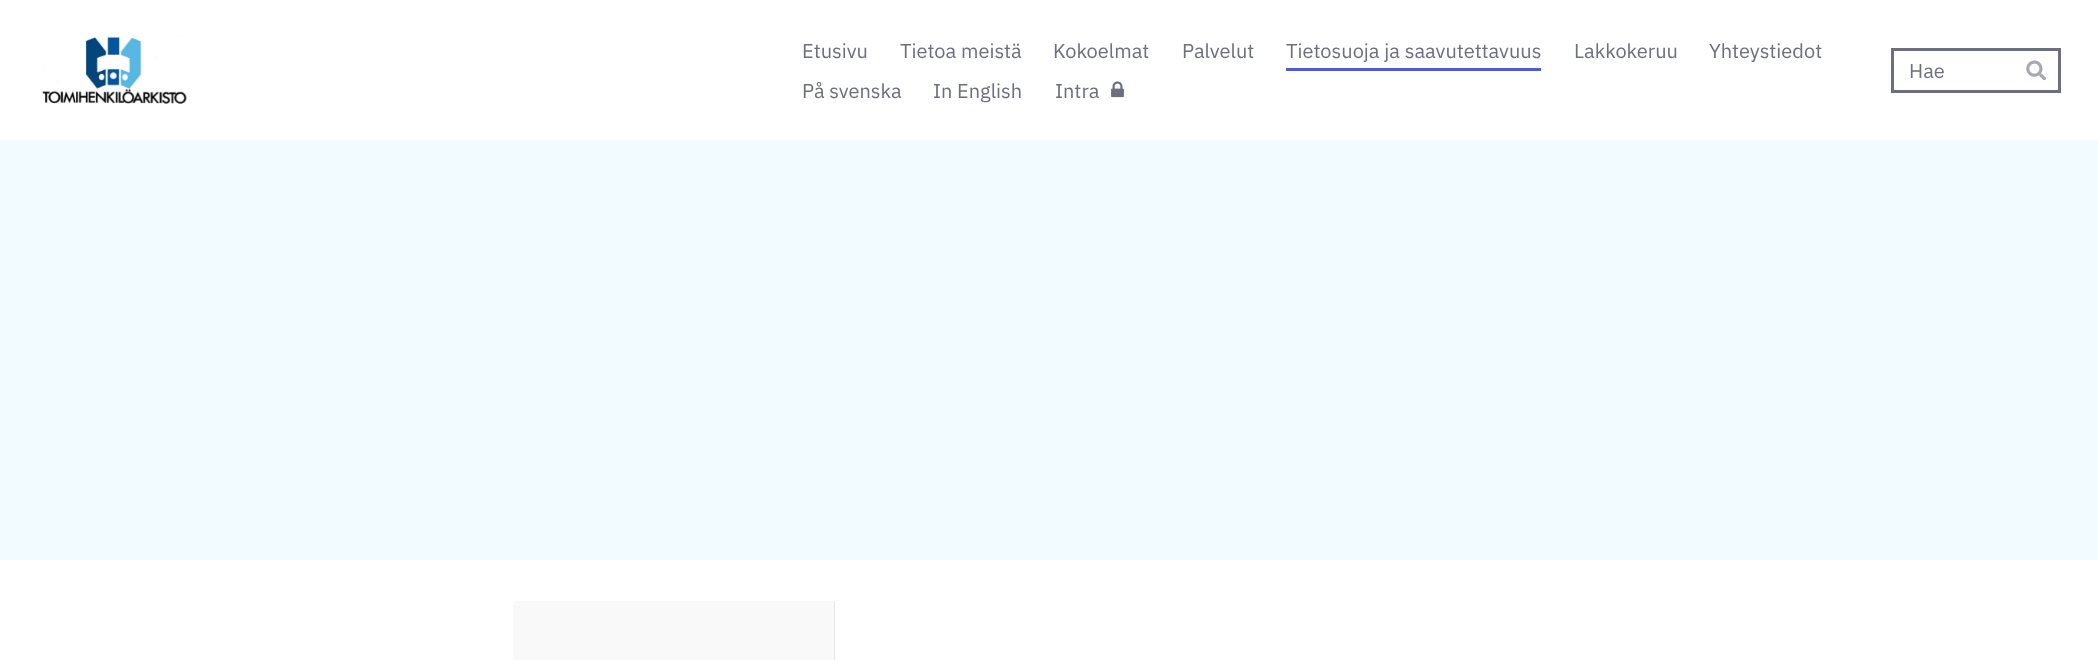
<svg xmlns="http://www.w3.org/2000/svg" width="2098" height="660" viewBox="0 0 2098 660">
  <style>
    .t1 { font: 20px IBM Plex Sans; fill: #6b6f80; }
  </style>
  <rect width="100%" height="100%" fill="#fff"/>
  <rect x="0" y="140" width="2098" height="420" fill="#f2fbff"/>
  <image x="42" y="35" width="145" height="69" href="images/1.png"/>
  <text x="802" y="58" class="t1">Etusivu</text>
  <text x="900" y="58" class="t1">Tietoa meistä</text>
  <text x="1053" y="58" class="t1">Kokoelmat</text>
  <text x="1182" y="58" class="t1">Palvelut</text>
  <text x="1286" y="58" class="t1">Tietosuoja ja saavutettavuus</text>
  <rect x="1286" y="68" width="255" height="3" fill="#4b5ae7"/>
  <text x="1574" y="58" class="t1">Lakkokeruu</text>
  <text x="1709" y="58" class="t1">Yhteystiedot</text>
  <text x="802" y="98" class="t1">På svenska</text>
  <text x="933" y="98" class="t1">In English</text>
  <text x="1055" y="98" class="t1">Intra</text>
  <image x="1111" y="81" width="13" height="17" href="images/2.png"/>
  <rect x="1892.5" y="49.5" width="167" height="42" fill="none" stroke="#6b6f80" stroke-width="3"/>
  <text x="1909" y="78" class="t1">Hae</text>
  <image x="2026" y="60" width="20" height="20" href="images/3.png"/>
  <path d="M517 601H835V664H513V605C513 603 515 601 517 601Z" fill="#f9f9f9"/>
  <rect x="834" y="601" width="1" height="59" fill="#e6e6e6"/>
</svg>
